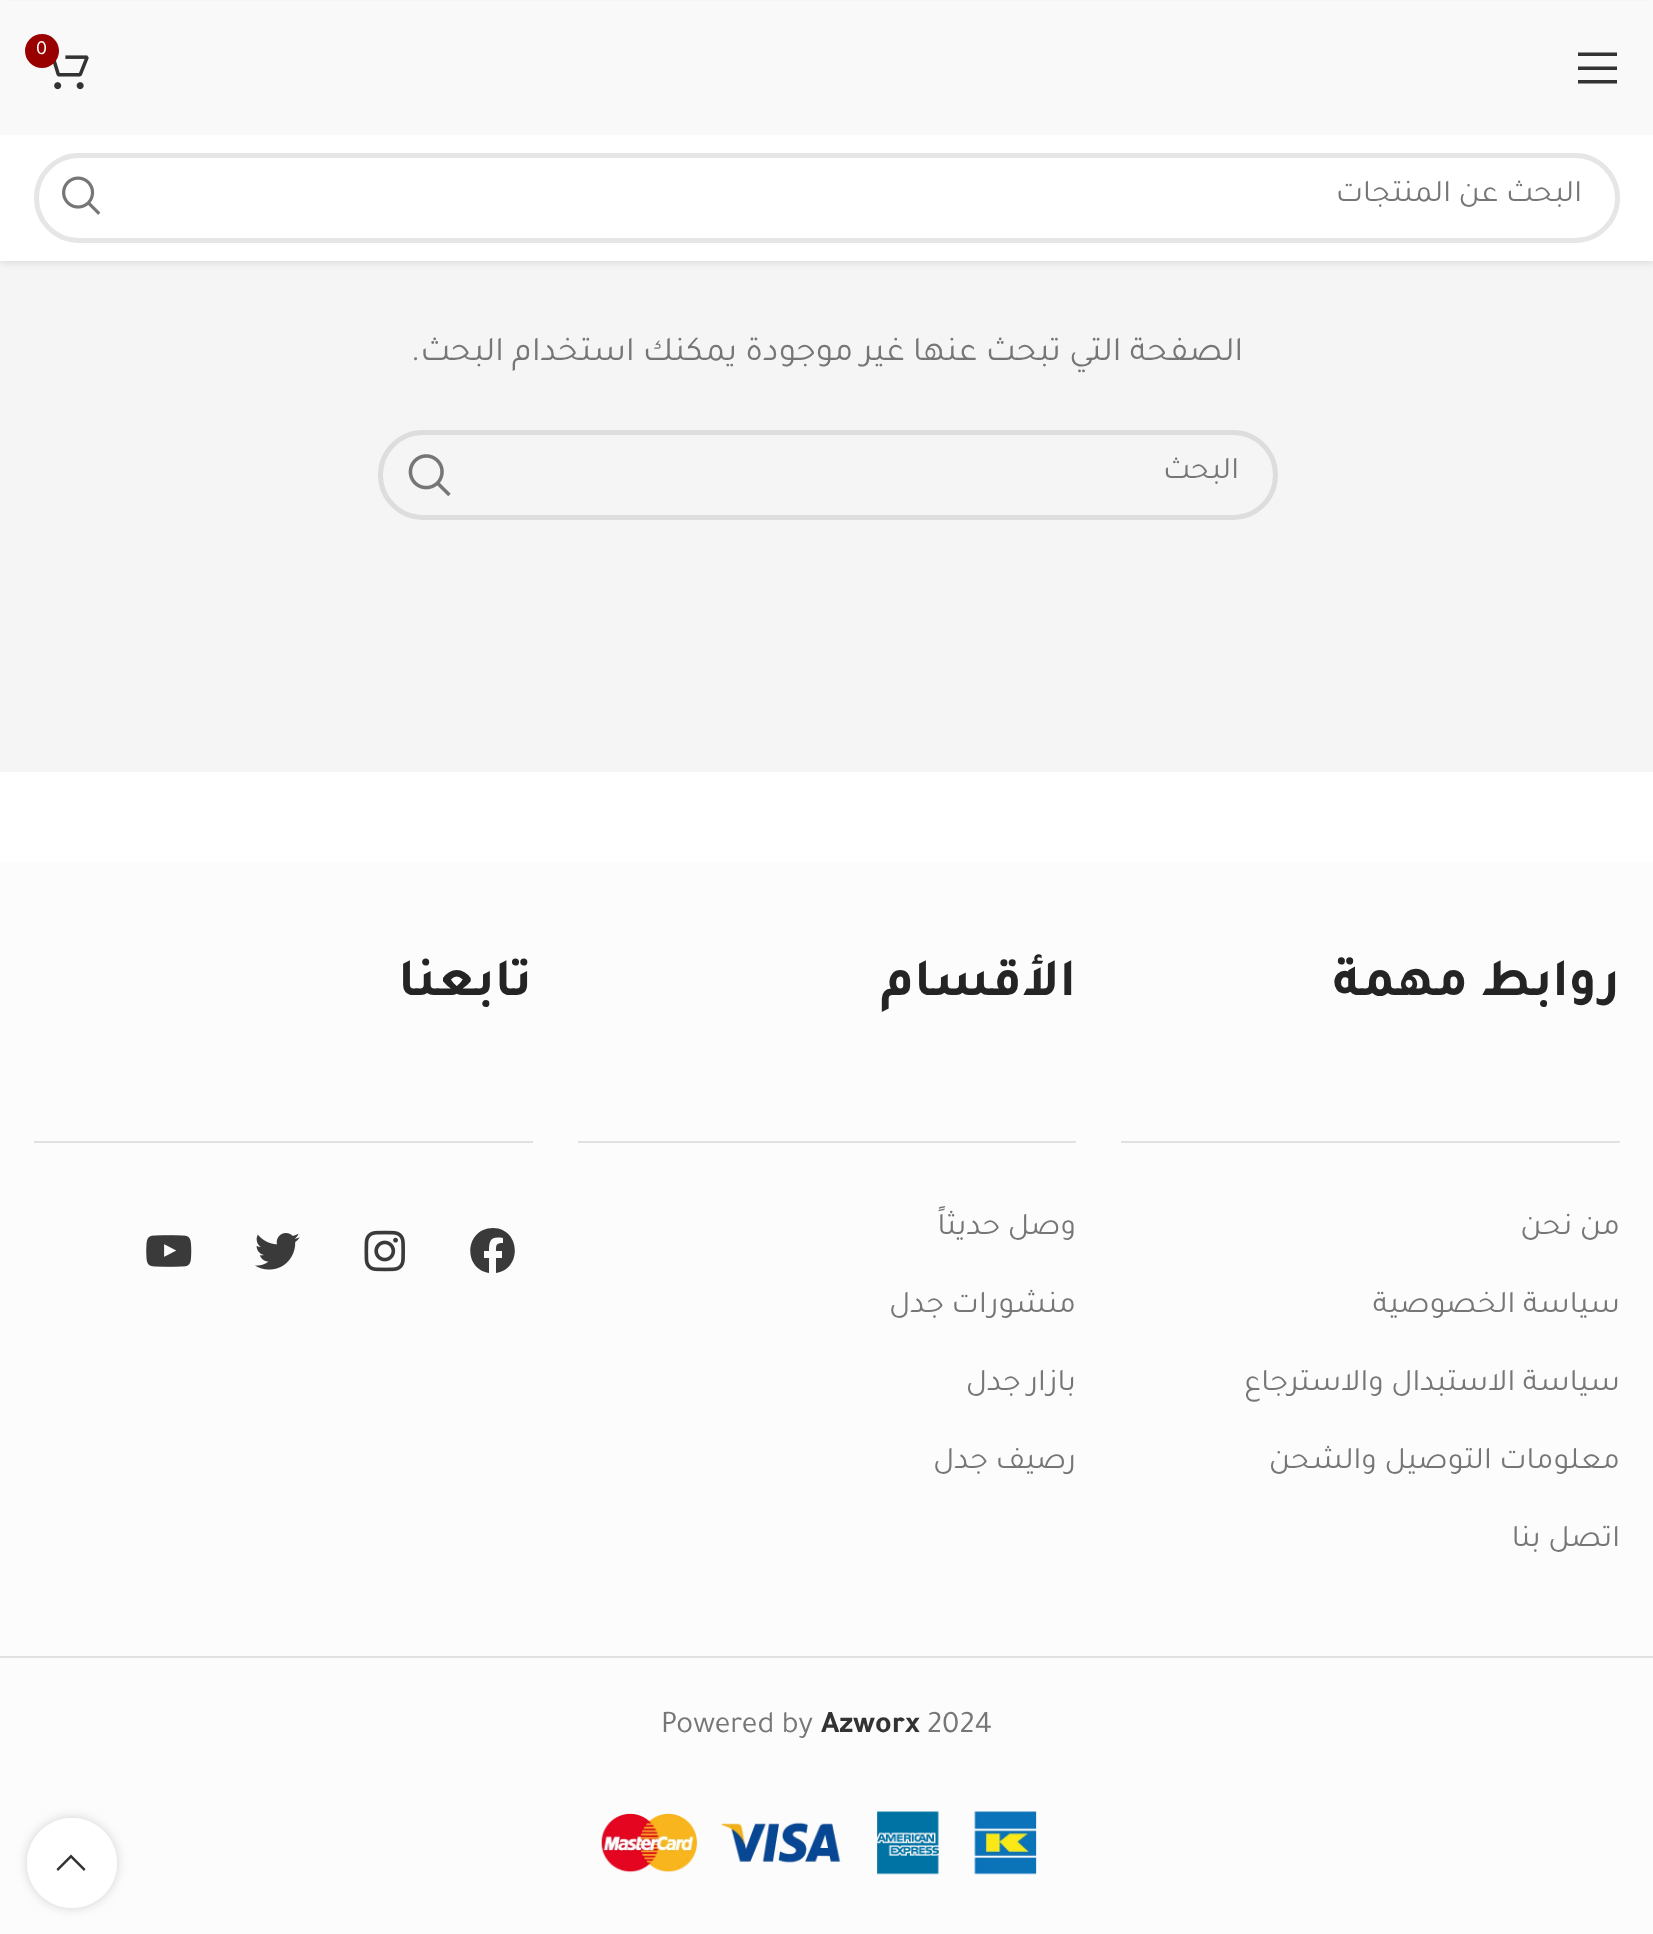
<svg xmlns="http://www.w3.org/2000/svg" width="1653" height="1934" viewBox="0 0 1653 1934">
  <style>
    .t1 { font: 20px Tajawal; fill: #fff; }
    .t2 { font: 31.5px Tajawal; direction: rtl; fill: #767676; }
    .t3 { font: 34.65px Tajawal; direction: rtl; fill: #767676; }
    .t4 { font: bold 54px Tajawal; direction: rtl; fill: #242424; }
    .t5 { font: 31.5px Tajawal; fill: #767676; }
    .t6 { font: bold 31.5px Tajawal; fill: #333; }
  </style>
  <defs>
    <clipPath id="clip1"><path d="M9 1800H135V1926H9ZM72 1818C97 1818 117 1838 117 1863C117 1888 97 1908 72 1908C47 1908 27 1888 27 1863C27 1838 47 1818 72 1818Z" clip-rule="evenodd"/></clipPath>
  </defs>
  <rect width="100%" height="100%" fill="#fff"/>
  <rect x="0" y="261" width="1653" height="511" fill="#f5f5f5"/>
  <rect x="0" y="2" width="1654" height="261" fill="#0000001a" filter="blur(3.5px)"/>
  <rect x="0" y="1" width="1653" height="134" fill="#f9f9f9"/>
  <image x="53" y="55" width="36" height="35" href="images/1.png"/>
  <circle cx="42" cy="51" r="17" fill="#900"/>
  <text x="36" y="54" class="t1">0</text>
  <path d="M1578 56H1617V52.5H1578ZM1578 70H1617V66.5H1578ZM1578 83.5H1617V80H1578Z" fill="#333"/>
  <rect x="0" y="135" width="1653" height="126" fill="#fff"/>
  <rect x="36.5" y="155.5" width="1581" height="85" rx="42.5" fill="none" stroke="#e6e6e6" stroke-width="5"/>
  <text x="1582" y="201" class="t2">البحث عن المنتجات</text>
  <image x="62" y="176" width="39" height="39" href="images/2.png"/>
  <text x="1243" y="360" class="t3">الصفحة التي تبحث عنها غير موجودة يمكنك استخدام البحث.</text>
  <rect x="380.5" y="432.5" width="895" height="85" rx="42.5" fill="none" stroke="#ddd" stroke-width="5"/>
  <text x="1239" y="478" class="t2">البحث</text>
  <image x="408" y="454" width="43" height="43" href="images/3.png"/>
  <rect x="0" y="862" width="1653" height="1072" fill="#fcfcfc"/>
  <rect x="1121" y="1141" width="499" height="2" fill="#e1e1e1"/>
  <text x="1620" y="995" class="t4">روابط مهمة</text>
  <text x="1620" y="1234" class="t2">من نحن</text>
  <text x="1620" y="1312" class="t2">سياسة الخصوصية</text>
  <text x="1620" y="1390" class="t2">سياسة الاستبدال والاسترجاع</text>
  <text x="1620" y="1468" class="t2">معلومات التوصيل والشحن</text>
  <text x="1620" y="1546" class="t2">اتصل بنا</text>
  <rect x="578" y="1141" width="498" height="2" fill="#e1e1e1"/>
  <text x="1076" y="995" class="t4">الأقسام</text>
  <text x="1076" y="1234" class="t2">وصل حديثاً</text>
  <text x="1076" y="1312" class="t2">منشورات جدل</text>
  <text x="1076" y="1390" class="t2">بازار جدل</text>
  <text x="1076" y="1468" class="t2">رصيف جدل</text>
  <rect x="34" y="1141" width="499" height="2" fill="#e1e1e1"/>
  <text x="532" y="995" class="t4">تابعنا</text>
  <path d="M493 1228C465 1228 462 1269 489 1273V1258H484V1251H489C489 1240 491 1236 503 1238V1243C496 1243 496 1245 496 1251H502V1258H496V1273C523 1269 520 1228 493 1228Z" fill="#3a3a3a"/>
  <image x="364" y="1230" width="41" height="42" href="images/4.png"/>
  <image x="255" y="1233" width="45" height="37" href="images/5.png"/>
  <image x="146" y="1235" width="46" height="32" href="images/6.png"/>
  <rect x="0" y="1656" width="1653" height="2" fill="#e1e1e1"/>
  <text x="927" y="1732" class="t5">2024</text>
  <text x="821" y="1732" class="t6">Azworx</text>
  <text x="661" y="1732" class="t5">Powered by</text>
  <image x="601" y="1810" width="436" height="65" href="images/7.png"/>
  <g clip-path="url(#clip1)">
    <rect x="27" y="1818" width="90" height="90" rx="45" fill="#0000002b" filter="blur(5.5px)"/>
  </g>
  <circle cx="72" cy="1863" r="45" fill="#ffffffe6"/>
  <path d="M84 1871L85.5 1869L71 1854.5L56.5 1869L58 1871L71 1858Z" fill="#333"/>
</svg>
